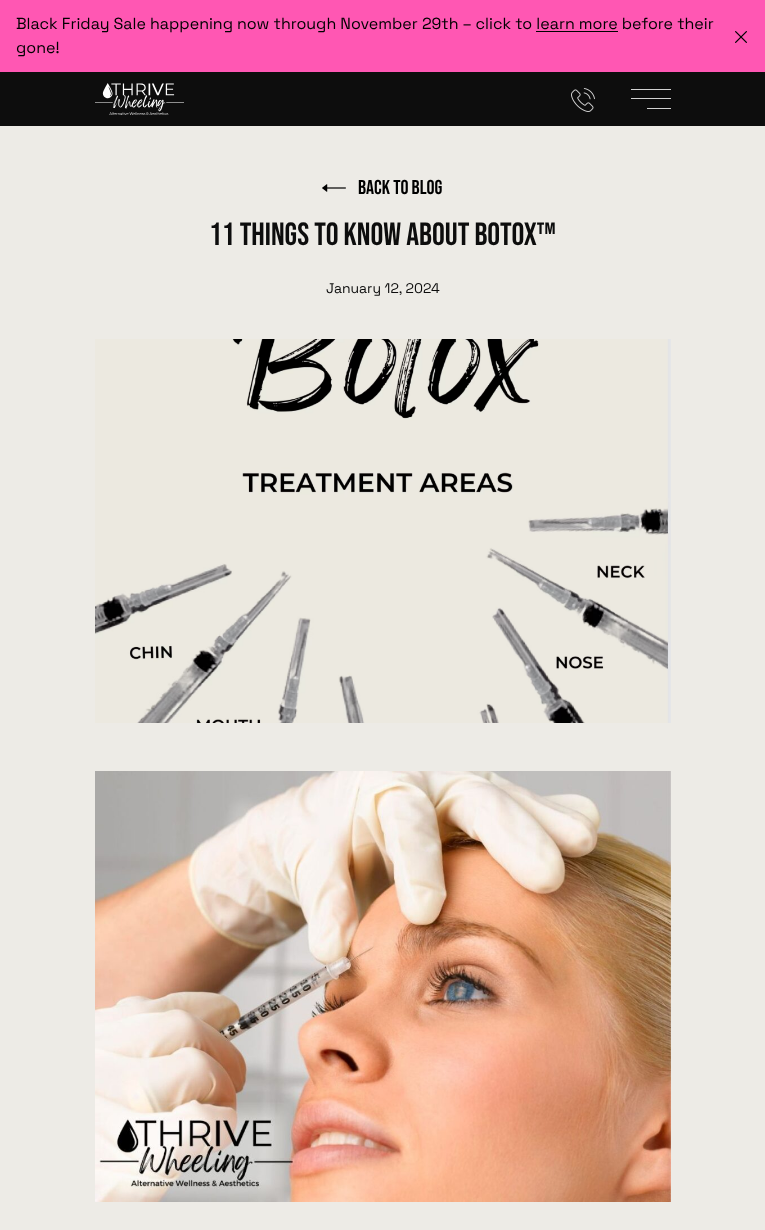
<svg xmlns="http://www.w3.org/2000/svg" width="765" height="1230" viewBox="0 0 765 1230">
  <style>
    .t1 { font: 16px Space Grotesk; fill: #000; }
    .t2 { font: 20px Bebas Neue; fill: #000; }
    .t3 { font: 32px Bebas Neue; fill: #0d0d0d; }
    .t4 { font: 14px Space Grotesk; fill: #0d0d0d; }
  </style>
  <rect width="100%" height="100%" fill="#edebe6"/>
  <rect x="0" y="72" width="765" height="54" fill="#0d0d0d"/>
  <rect x="0" y="0" width="765" height="72" fill="#ff57b3"/>
  <text x="16" y="29" class="t1">Black Friday Sale happening now through November 29th – click to learn more before their</text>
  <rect x="536" y="31" width="82" height="1" fill="#000"/>
  <text x="16" y="53" class="t1">gone!</text>
  <image x="735" y="31" width="12" height="12" href="images/1.png"/>
  <image x="95" y="83" width="89" height="32" href="images/2.png"/>
  <image x="571" y="88" width="24" height="24" href="images/3.png"/>
  <rect x="631" y="89" width="40" height="1" fill="#d2d2d2"/>
  <rect x="631" y="98" width="40" height="1" fill="#d2d2d2"/>
  <rect x="647" y="108" width="24" height="1" fill="#d2d2d2"/>
  <image x="322" y="184" width="24" height="8" href="images/4.png"/>
  <text x="358" y="194" class="t2">BACK TO BLOG</text>
  <text x="209" y="245" class="t3">11 THINGS TO KNOW ABOUT BOTOX™</text>
  <text x="326" y="293" class="t4">January 12, 2024</text>
  <image x="95" y="339" width="576" height="384" href="images/5.png"/>
  <image x="95" y="771" width="576" height="431" href="images/6.png"/>
</svg>
